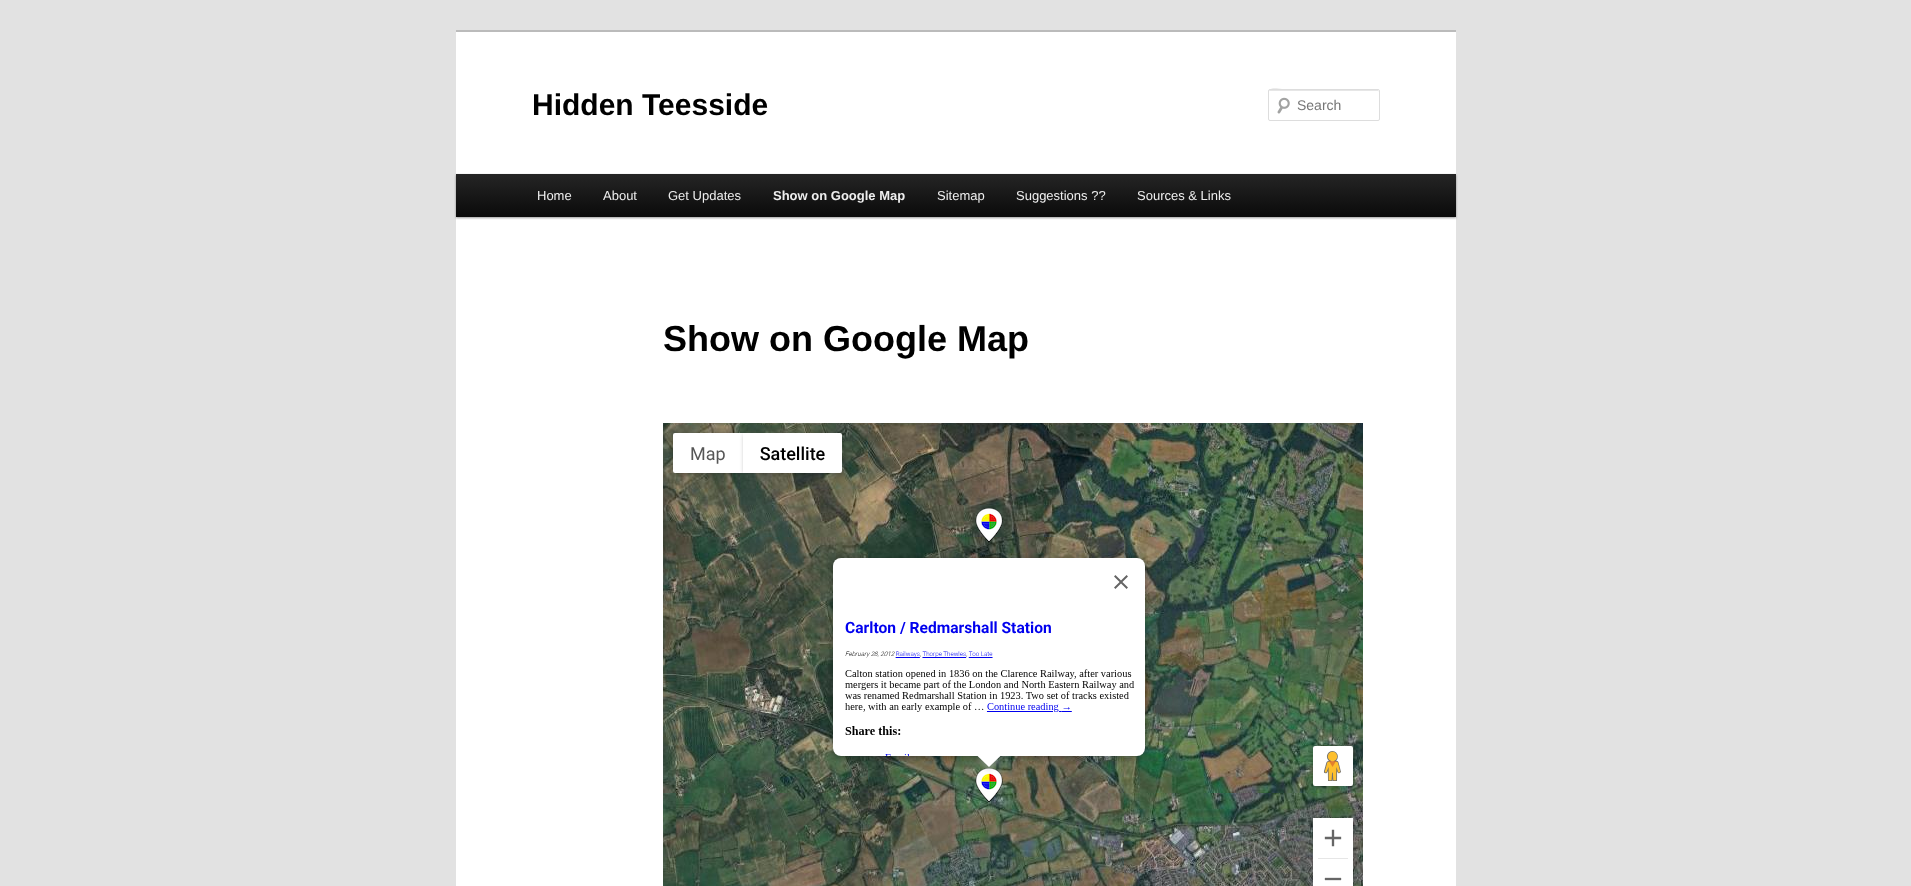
<svg xmlns="http://www.w3.org/2000/svg" width="1911" height="886" viewBox="0 0 1911 886">
  <style>
    .t1 { font: bold 30px Liberation Sans; fill: #000; }
    .t2 { font: 14px Liberation Sans; fill: #757575; }
    .t3 { font: 13px Liberation Sans; fill: #eee; }
    .t4 { font: bold 13px Liberation Sans; fill: #eee; }
    .t5 { font: bold 36px Liberation Sans; fill: #000; }
  </style>
  <defs>
    <linearGradient id="g1" gradientUnits="userSpaceOnUse" x1="956" y1="174" x2="956" y2="217"><stop offset="0" stop-color="#252525"/><stop offset="1" stop-color="#0a0a0a"/></linearGradient>
  </defs>
  <rect width="100%" height="100%" fill="#e2e2e2"/>
  <rect x="456" y="32" width="1000" height="854" fill="#fff"/>
  <rect x="456" y="30" width="1000" height="2" fill="#bbb"/>
  <text x="532" y="115" class="t1">Hidden Teesside</text>
  <image x="1277" y="97" width="13" height="17" href="images/1.png"/>
  <path d="M1270 91H1379V92L1378 90H1288C1284 90 1269 85 1269 92C1269 91 1269 91 1270 91Z" fill="#e6e6e6"/>
  <rect x="1268.5" y="89.5" width="111" height="31" rx="1.5" fill="none" stroke="#ddd"/>
  <text x="1297" y="110" class="t2">Search</text>
  <rect x="456" y="175" width="1000" height="43" fill="#00000066" filter="blur(1px)"/>
  <rect x="456" y="174" width="1000" height="43" fill="url(#g1)"/>
  <text x="537" y="200" class="t3">Home</text>
  <text x="603" y="200" class="t3">About</text>
  <text x="668" y="200" class="t3">Get Updates</text>
  <text x="773" y="200" class="t4">Show on Google Map</text>
  <text x="937" y="200" class="t3">Sitemap</text>
  <text x="1016" y="200" class="t3">Suggestions ??</text>
  <text x="1137" y="200" class="t3">Sources &amp; Links</text>
  <text x="663" y="351" class="t5">Show on Google Map</text>
  <image x="663" y="423" width="700" height="463" href="images/2.png"/>
</svg>
